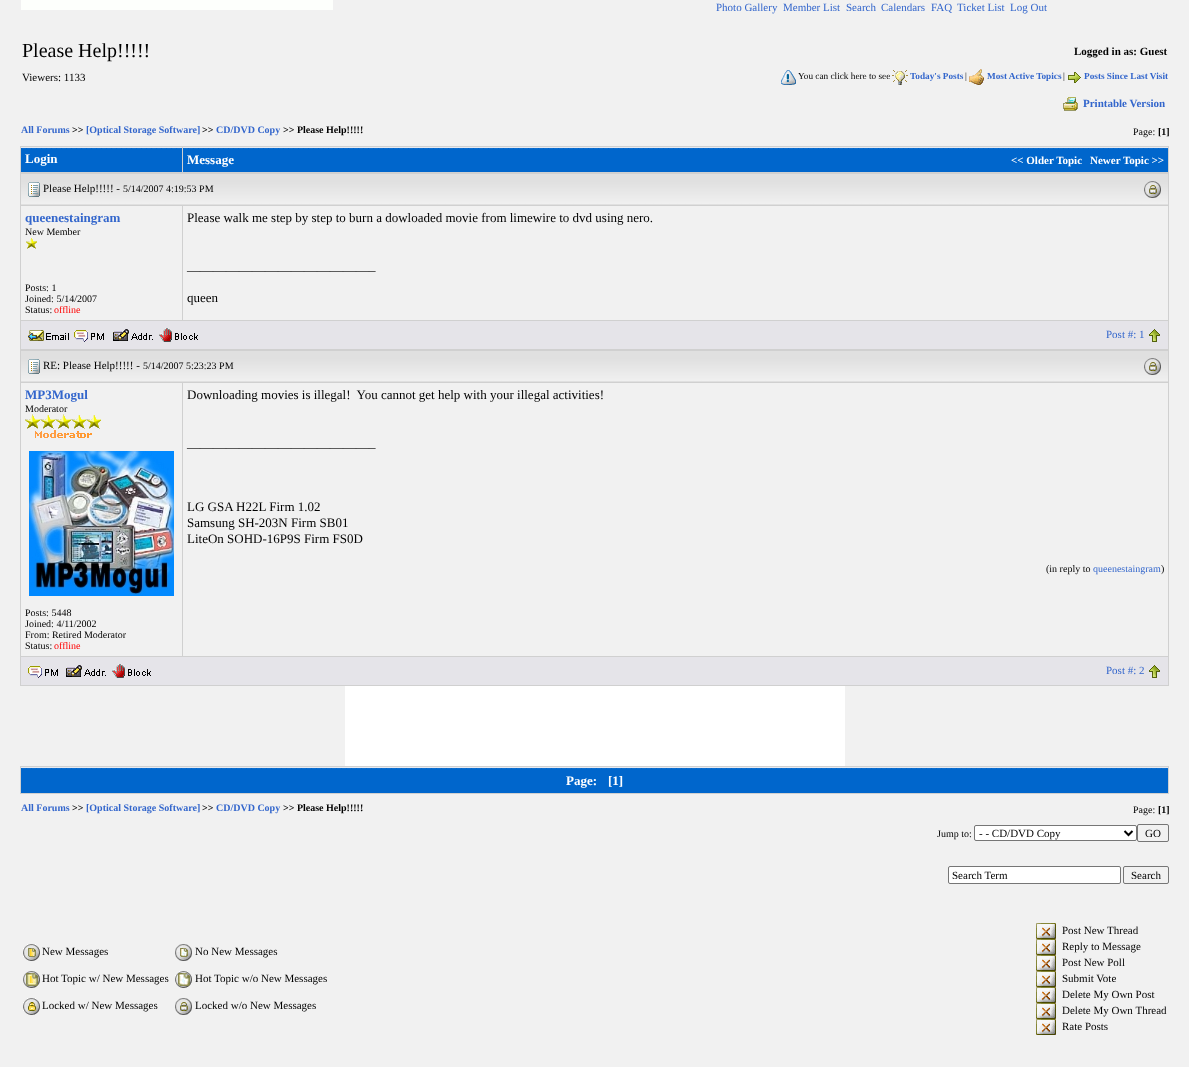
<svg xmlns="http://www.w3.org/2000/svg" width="1189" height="1067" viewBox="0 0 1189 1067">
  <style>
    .t1 { font: 11px Liberation Serif; fill: #36c; }
    .t2 { font: 20px Liberation Serif; fill: #000; }
    .t3 { font: bold 11px Liberation Serif; fill: #000; }
    .t4 { font: 11px Liberation Serif; fill: #000; }
    .t5 { font: 9.25px Liberation Serif; fill: #000; }
    .t6 { font: bold 9.25px Liberation Serif; fill: #36c; }
    .t7 { font: bold 11px Liberation Serif; fill: #36c; }
    .t8 { font: bold 10px Liberation Serif; fill: #36c; }
    .t9 { font: bold 10px Liberation Serif; fill: #000; }
    .t10 { font: 10px Liberation Serif; fill: #000; }
    .t11 { font: bold 13px Liberation Serif; fill: #fff; }
    .t12 { font: bold 11px Liberation Serif; fill: #fff; }
    .t13 { font: bold 13px Liberation Serif; fill: #36c; }
    .t14 { font: 10px Liberation Serif; fill: #f00; }
    .t15 { font: 13px Liberation Serif; fill: #000; }
    .t16 { font: 10px Liberation Serif; fill: #36c; }
  </style>
  <rect width="100%" height="100%" fill="#f1f1f1"/>
  <rect x="21" y="0" width="312" height="10" fill="#fdfffc"/>
  <text x="716" y="11" class="t1">Photo Gallery</text>
  <text x="783" y="11" class="t1">Member List</text>
  <text x="846" y="11" class="t1">Search</text>
  <text x="881" y="11" class="t1">Calendars</text>
  <text x="931" y="11" class="t1">FAQ</text>
  <text x="957" y="11" class="t1">Ticket List</text>
  <text x="1010" y="11" class="t1">Log Out</text>
  <text x="22" y="57" class="t2">Please Help!!!!!</text>
  <text x="1074" y="55" class="t3">Logged in as: Guest</text>
  <text x="22" y="81" class="t4">Viewers: 1133</text>
  <image x="781" y="70" width="15" height="15" href="images/1.png"/>
  <text x="798" y="79" class="t5">You can click here to see</text>
  <image x="892" y="70" width="16" height="15" href="images/2.png"/>
  <text x="910" y="79" class="t6">Today's Posts</text>
  <text x="965" y="79" class="t5">|</text>
  <image x="969" y="69" width="15" height="16" href="images/3.png"/>
  <text x="987" y="79" class="t6">Most Active Topics</text>
  <text x="1063" y="79" class="t5">|</text>
  <image x="1068" y="72" width="13" height="11" href="images/4.png"/>
  <text x="1084" y="79" class="t6">Posts Since Last Visit</text>
  <image x="1063" y="97" width="15" height="14" href="images/5.png"/>
  <text x="1083" y="107" class="t7">Printable Version</text>
  <text x="21" y="133" class="t8">All Forums</text>
  <text x="72" y="133" class="t9">&gt;&gt;</text>
  <text x="86" y="133" class="t8">[Optical Storage Software]</text>
  <text x="202" y="133" class="t9">&gt;&gt;</text>
  <text x="216" y="133" class="t8">CD/DVD Copy</text>
  <text x="283" y="133" class="t9">&gt;&gt; Please Help!!!!!</text>
  <text x="1133" y="135" class="t10">Page:</text>
  <text x="1158" y="135" class="t9">[1]</text>
  <rect x="20" y="146" width="1149" height="540" fill="#d0d0d0"/>
  <image x="21" y="147" width="161" height="25" href="images/6.png"/>
  <text x="25" y="163" class="t11">Login</text>
  <image x="183" y="147" width="985" height="25" href="images/7.png"/>
  <text x="187" y="164" class="t11">Message</text>
  <text x="1011" y="164" class="t12">&lt;&lt; Older Topic</text>
  <text x="1090" y="164" class="t12">Newer Topic &gt;&gt;</text>
  <image x="21" y="174" width="1147" height="31" href="images/8.png"/>
  <image x="28" y="182" width="12" height="15" href="images/9.png"/>
  <text x="43" y="192" class="t4">Please Help!!!!! -</text>
  <text x="123" y="192" class="t10">5/14/2007 4:19:53 PM</text>
  <image x="1144" y="181" width="17" height="17" href="images/10.png"/>
  <rect x="21" y="206" width="161" height="114" fill="#f1f1f1"/>
  <text x="25" y="222" class="t13">queenestaingram</text>
  <text x="25" y="235" class="t10">New Member</text>
  <image x="26" y="238" width="11" height="11" href="images/11.png"/>
  <text x="25" y="291" class="t10">Posts: 1</text>
  <text x="25" y="302" class="t10">Joined: 5/14/2007</text>
  <text x="25" y="313" class="t10">Status:</text>
  <text x="54" y="313" class="t14">offline</text>
  <rect x="183" y="206" width="985" height="114" fill="#f1f1f1"/>
  <text x="187" y="222" class="t15">Please walk me step by step to burn a dowloaded movie from limewire to dvd using nero.</text>
  <text x="187" y="270" class="t15">_____________________________</text>
  <text x="187" y="302" class="t15">queen</text>
  <rect x="21" y="321" width="1147" height="28" fill="#e5e4e9"/>
  <image x="28" y="330" width="41" height="11" href="images/12.png"/>
  <image x="74" y="330" width="30" height="12" href="images/13.png"/>
  <image x="113" y="329" width="40" height="12" href="images/14.png"/>
  <image x="159" y="328" width="39" height="14" href="images/15.png"/>
  <text x="1106" y="338" class="t1">Post #: 1</text>
  <image x="1149" y="329" width="11" height="13" href="images/16.png"/>
  <image x="21" y="351" width="1147" height="31" href="images/8.png"/>
  <image x="28" y="359" width="12" height="15" href="images/9.png"/>
  <text x="43" y="369" class="t4">RE: Please Help!!!!! -</text>
  <text x="143" y="369" class="t10">5/14/2007 5:23:23 PM</text>
  <image x="1144" y="358" width="17" height="17" href="images/10.png"/>
  <rect x="21" y="383" width="161" height="273" fill="#f1f1f1"/>
  <text x="25" y="399" class="t13">MP3Mogul</text>
  <text x="25" y="412" class="t10">Moderator</text>
  <image x="25" y="414" width="76" height="24" href="images/17.png"/>
  <image x="29" y="451" width="145" height="145" href="images/18.png"/>
  <text x="25" y="616" class="t10">Posts: 5448</text>
  <text x="25" y="627" class="t10">Joined: 4/11/2002</text>
  <text x="25" y="638" class="t10">From: Retired Moderator</text>
  <text x="25" y="649" class="t10">Status:</text>
  <text x="54" y="649" class="t14">offline</text>
  <rect x="183" y="383" width="985" height="273" fill="#f1f1f1"/>
  <text x="187" y="399" class="t15" xml:space="preserve">Downloading movies is illegal!  You cannot get help with your illegal activities!</text>
  <text x="187" y="447" class="t15">_____________________________</text>
  <text x="187" y="511" class="t15">LG GSA H22L Firm 1.02</text>
  <text x="187" y="527" class="t15">Samsung SH-203N Firm SB01</text>
  <text x="187" y="543" class="t15">LiteOn SOHD-16P9S Firm FS0D</text>
  <text x="1046" y="572" class="t10">(in reply to</text>
  <text x="1093" y="572" class="t16">queenestaingram</text>
  <text x="1161" y="572" class="t10">)</text>
  <rect x="21" y="657" width="1147" height="28" fill="#e5e4e9"/>
  <image x="28" y="666" width="30" height="12" href="images/13.png"/>
  <image x="66" y="665" width="40" height="12" href="images/14.png"/>
  <image x="112" y="664" width="39" height="14" href="images/15.png"/>
  <text x="1106" y="674" class="t1">Post #: 2</text>
  <image x="1149" y="665" width="11" height="13" href="images/16.png"/>
  <rect x="345" y="686" width="500" height="80" fill="#fff"/>
  <rect x="20" y="766" width="1149" height="28" fill="#d0d0d0"/>
  <image x="21" y="767" width="1147" height="26" href="images/19.png"/>
  <text x="566" y="785" class="t11">Page:</text>
  <text x="608" y="785" class="t11">[1]</text>
  <text x="21" y="811" class="t8">All Forums</text>
  <text x="72" y="811" class="t9">&gt;&gt;</text>
  <text x="86" y="811" class="t8">[Optical Storage Software]</text>
  <text x="202" y="811" class="t9">&gt;&gt;</text>
  <text x="216" y="811" class="t8">CD/DVD Copy</text>
  <text x="283" y="811" class="t9">&gt;&gt; Please Help!!!!!</text>
  <text x="1133" y="813" class="t10">Page:</text>
  <text x="1158" y="813" class="t9">[1]</text>
  <text x="937" y="837" class="t10">Jump to:</text>
  <rect x="974.5" y="825.5" width="162" height="15" rx="1.5" fill="#fff" stroke="#767676"/>
  <path d="M1124.5 831L1128.5 835L1132.5 831" fill="none" stroke="#000" stroke-width="2"/>
  <text x="979" y="837" class="t4">- - CD/DVD Copy</text>
  <rect x="1137.5" y="824.5" width="31" height="17" rx="1.5" fill="none" stroke="#767676"/>
  <text x="1145" y="837" class="t4">GO</text>
  <rect x="948.5" y="866.5" width="172" height="17" rx="1.5" fill="#fff" stroke="#767676"/>
  <text x="952" y="879" class="t4">Search Term</text>
  <rect x="1123.5" y="866.5" width="45" height="17" rx="1.5" fill="none" stroke="#767676"/>
  <text x="1131" y="879" class="t4">Search</text>
  <image x="23" y="944" width="17" height="17" href="images/20.png"/>
  <text x="42" y="955" class="t4">New Messages</text>
  <image x="175" y="944" width="17" height="17" href="images/21.png"/>
  <text x="195" y="955" class="t4">No New Messages</text>
  <image x="23" y="971" width="17" height="17" href="images/22.png"/>
  <text x="42" y="982" class="t4">Hot Topic w/ New Messages</text>
  <image x="175" y="971" width="17" height="17" href="images/23.png"/>
  <text x="195" y="982" class="t4">Hot Topic w/o New Messages</text>
  <image x="23" y="998" width="17" height="17" href="images/24.png"/>
  <text x="42" y="1009" class="t4">Locked w/ New Messages</text>
  <image x="175" y="998" width="17" height="17" href="images/25.png"/>
  <text x="195" y="1009" class="t4">Locked w/o New Messages</text>
  <image x="1036" y="923" width="20" height="16" href="images/26.png"/>
  <text x="1062" y="934" class="t4">Post New Thread</text>
  <image x="1036" y="939" width="20" height="16" href="images/26.png"/>
  <text x="1062" y="950" class="t4">Reply to Message</text>
  <image x="1036" y="955" width="20" height="16" href="images/26.png"/>
  <text x="1062" y="966" class="t4">Post New Poll</text>
  <image x="1036" y="971" width="20" height="16" href="images/26.png"/>
  <text x="1062" y="982" class="t4">Submit Vote</text>
  <image x="1036" y="987" width="20" height="16" href="images/26.png"/>
  <text x="1062" y="998" class="t4">Delete My Own Post</text>
  <image x="1036" y="1003" width="20" height="16" href="images/26.png"/>
  <text x="1062" y="1014" class="t4">Delete My Own Thread</text>
  <image x="1036" y="1019" width="20" height="16" href="images/26.png"/>
  <text x="1062" y="1030" class="t4">Rate Posts</text>
</svg>
